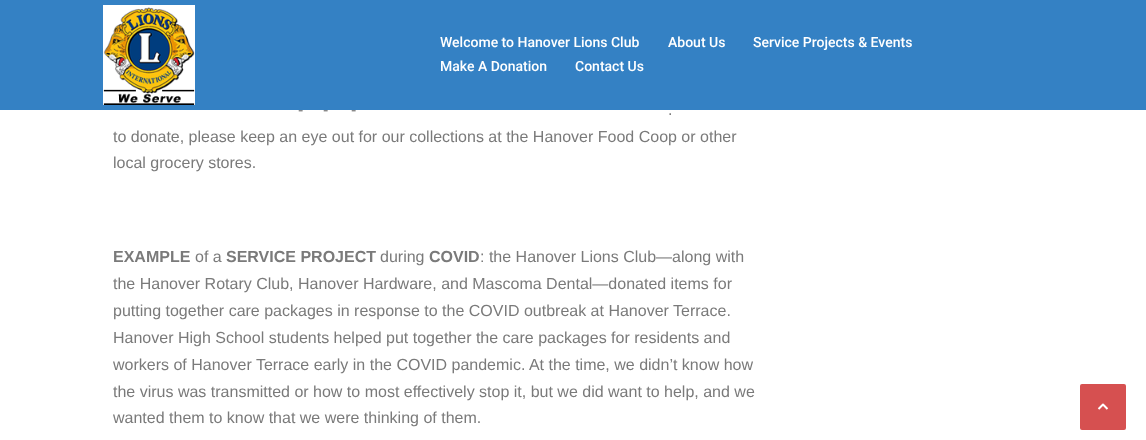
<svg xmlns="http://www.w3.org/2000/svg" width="1146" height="440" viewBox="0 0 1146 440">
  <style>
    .t1 { font: 500 14px Roboto; fill: #fff; }
    .t2 { font: 16px Liberation Sans; fill: #7a7a7a; }
    .t3 { font: bold 16px Liberation Sans; fill: #7a7a7a; }
  </style>
  <rect width="100%" height="100%" fill="#fff"/>
  <rect x="0" y="0" width="1146" height="110" fill="#1e73bee6"/>
  <image x="103" y="5" width="92" height="100" href="images/1.png"/>
  <text x="440" y="47" class="t1">Welcome to Hanover Lions Club</text>
  <text x="668" y="47" class="t1">About Us</text>
  <text x="753" y="47" class="t1">Service Projects &amp; Events</text>
  <text x="440" y="71" class="t1">Make A Donation</text>
  <text x="575" y="71" class="t1">Contact Us</text>
  <text x="298" y="115" class="t2">-</text>
  <text x="323" y="115" class="t2">-</text>
  <text x="351" y="115" class="t2">-</text>
  <text x="668" y="115" class="t2">.</text>
  <text x="113" y="142" class="t2">to donate, please keep an eye out for our collections at the Hanover Food Coop or other</text>
  <text x="113" y="168" class="t2">local grocery stores.</text>
  <text x="113" y="262" class="t3">EXAMPLE</text>
  <text x="195" y="262" class="t2">of a</text>
  <text x="226" y="262" class="t3">SERVICE PROJECT</text>
  <text x="380" y="262" class="t2">during</text>
  <text x="429" y="262" class="t3">COVID</text>
  <text x="480" y="262" class="t2">: the Hanover Lions Club—along with</text>
  <text x="113" y="289" class="t2">the Hanover Rotary Club, Hanover Hardware, and Mascoma Dental—donated items for</text>
  <text x="113" y="316" class="t2">putting together care packages in response to the COVID outbreak at Hanover Terrace.</text>
  <text x="113" y="343" class="t2">Hanover High School students helped put together the care packages for residents and</text>
  <text x="113" y="370" class="t2">workers of Hanover Terrace early in the COVID pandemic. At the time, we didn’t know how</text>
  <text x="113" y="397" class="t2">the virus was transmitted or how to most effectively stop it, but we did want to help, and we</text>
  <text x="113" y="423" class="t2">wanted them to know that we were thinking of them.</text>
  <rect x="1080" y="384" width="46" height="46" rx="2" fill="#d65050"/>
  <path d="M1098.5 409L1103 404.5L1107.5 409" fill="none" stroke="#fff" stroke-width="2" stroke-linejoin="round"/>
</svg>
